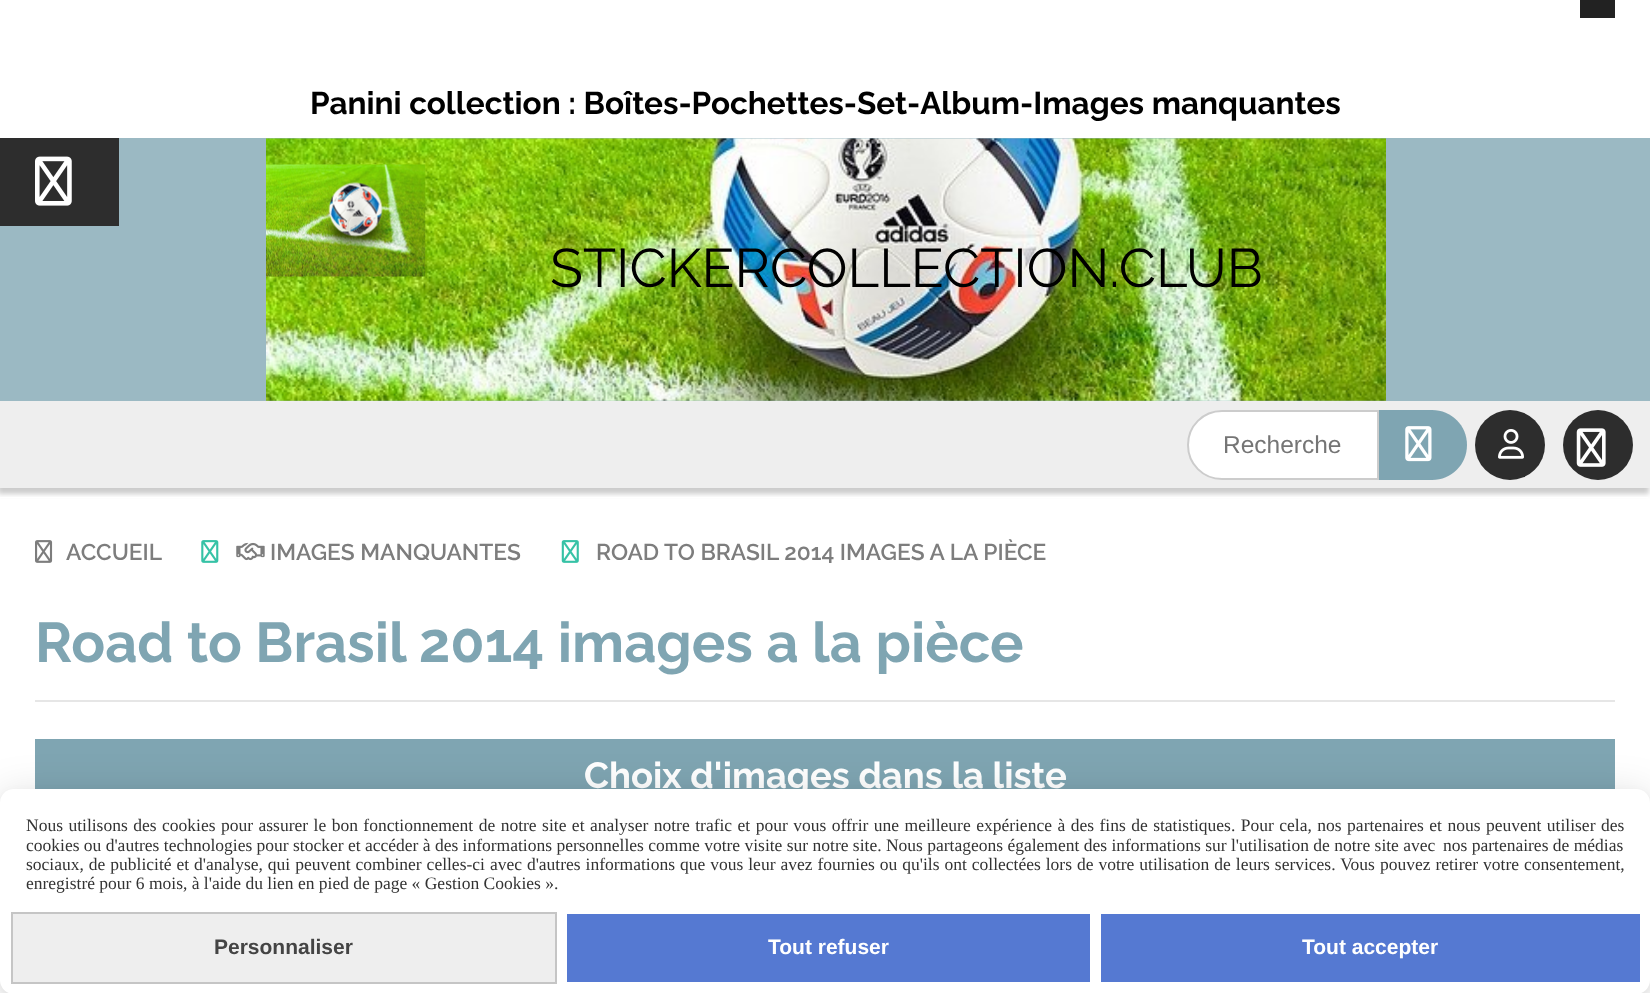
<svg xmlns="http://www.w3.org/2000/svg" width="1650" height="993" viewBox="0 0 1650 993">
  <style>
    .t1 { font: bold 31.5px Raleway; fill: #000; }
    .t2 { font: 54.25px Raleway; fill: #000; }
    .t3 { font: 24.5px Liberation Sans; fill: #757575; }
    .t4 { font: 600 22.75px Raleway; fill: #7d7d7d; }
    .t5 { font: bold 56px Raleway; fill: #7fa5b2; }
    .t6 { font: bold 36.4px Raleway; fill: #fff; }
    .t7 { font: 17.5px Liberation Serif; fill: #333; }
    .t8 { font: bold 21px Liberation Sans; fill: #444; }
    .t9 { font: bold 21px Liberation Sans; fill: #fff; }
  </style>
  <rect width="100%" height="100%" fill="#fff"/>
  <rect x="1580" y="0" width="35" height="18" fill="#222"/>
  <text x="310" y="114" class="t1">Panini collection : Boîtes-Pochettes-Set-Album-Images manquantes</text>
  <rect x="0" y="138" width="1650" height="263" fill="#9bb9c3"/>
  <image x="266" y="138" width="1120" height="263" href="images/1.png"/>
  <rect x="0" y="138" width="119" height="88" fill="#2d2d2d"/>
  <image x="35" y="156" width="37" height="50" href="images/2.png"/>
  <image x="266" y="164" width="160" height="113" href="images/3.png"/>
  <text x="550" y="287" class="t2">STICKERCOLLECTION.CLUB</text>
  <rect x="-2" y="406" width="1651" height="88" fill="#00000033" filter="blur(2.5px)"/>
  <rect x="0" y="401" width="1650" height="87" fill="#eee"/>
  <path d="M1222 411H1378V479H1222C1203 479 1188 464 1188 445C1188 426 1203 411 1222 411Z" fill="#fff" stroke="#ccc" stroke-width="2"/>
  <text x="1223" y="453" class="t3">Recherche</text>
  <path d="M1379 410H1432C1451.5 410 1467 425.5 1467 445C1467 464.5 1451.5 480 1432 480H1379Z" fill="#7fa5b2"/>
  <image x="1405" y="426" width="27" height="36" href="images/4.png"/>
  <circle cx="1510" cy="445" r="35" fill="#2d2d2d"/>
  <image x="1498" y="429" width="26" height="30" href="images/5.png"/>
  <circle cx="1598" cy="445" r="35" fill="#2d2d2d"/>
  <image x="1576" y="428" width="30" height="39" href="images/6.png"/>
  <rect x="0" y="497" width="1648" height="1" fill="#fff"/>
  <image x="35" y="540" width="18" height="23" href="images/7.png"/>
  <text x="66" y="560" class="t4">ACCUEIL</text>
  <image x="201" y="540" width="18" height="23" href="images/8.png"/>
  <image x="236" y="542" width="29" height="19" href="images/9.png"/>
  <text x="270" y="560" class="t4">IMAGES MANQUANTES</text>
  <image x="561" y="540" width="18" height="23" href="images/10.png"/>
  <text x="596" y="560" class="t4">ROAD TO BRASIL 2014 IMAGES A LA PIÈCE</text>
  <rect x="35" y="700" width="1580" height="2" fill="#e6e6e6"/>
  <text x="35" y="662" class="t5">Road to Brasil 2014 images a la pièce</text>
  <rect x="35" y="739" width="1580" height="50" fill="#7fa5b2"/>
  <text x="584" y="788" class="t6">Choix d'images dans la liste</text>
  <rect x="0" y="793" width="1650" height="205" rx="14" fill="#0000000d" filter="blur(5px)"/>
  <rect x="0" y="796" width="1650" height="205" rx="14" fill="#00000026" filter="blur(21px)"/>
  <rect x="0" y="789" width="1650" height="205" rx="14" fill="#fff"/>
  <text x="26" y="831" word-spacing="1.1" class="t7">Nous utilisons des cookies pour assurer le bon fonctionnement de notre site et analyser notre trafic et pour vous offrir une meilleure expérience à des fins de statistiques. Pour cela, nos partenaires et nous peuvent utiliser des</text>
  <text x="26" y="851" class="t7">cookies ou d'autres technologies pour stocker et accéder à des informations personnelles comme votre visite sur notre site. Nous partageons également des informations sur l'utilisation de notre site avec</text>
  <text x="1443" y="851" class="t7">nos partenaires de médias</text>
  <text x="26" y="870" word-spacing="0.6" class="t7">sociaux, de publicité et d'analyse, qui peuvent combiner celles-ci avec d'autres informations que vous leur avez fournies ou qu'ils ont collectées lors de votre utilisation de leurs services. Vous pouvez retirer votre consentement,</text>
  <text x="26" y="889" class="t7">enregistré pour 6 mois, à l'aide du lien en pied de page « Gestion Cookies ».</text>
  <rect x="12" y="913" width="544" height="70" fill="#eee" stroke="#c5c5c5" stroke-width="2"/>
  <text x="214" y="954" class="t8">Personnaliser</text>
  <rect x="567" y="914" width="523" height="68" fill="#5579d2"/>
  <text x="768" y="954" class="t9">Tout refuser</text>
  <rect x="1101" y="914" width="539" height="68" fill="#5579d2"/>
  <text x="1302" y="954" class="t9">Tout accepter</text>
</svg>
